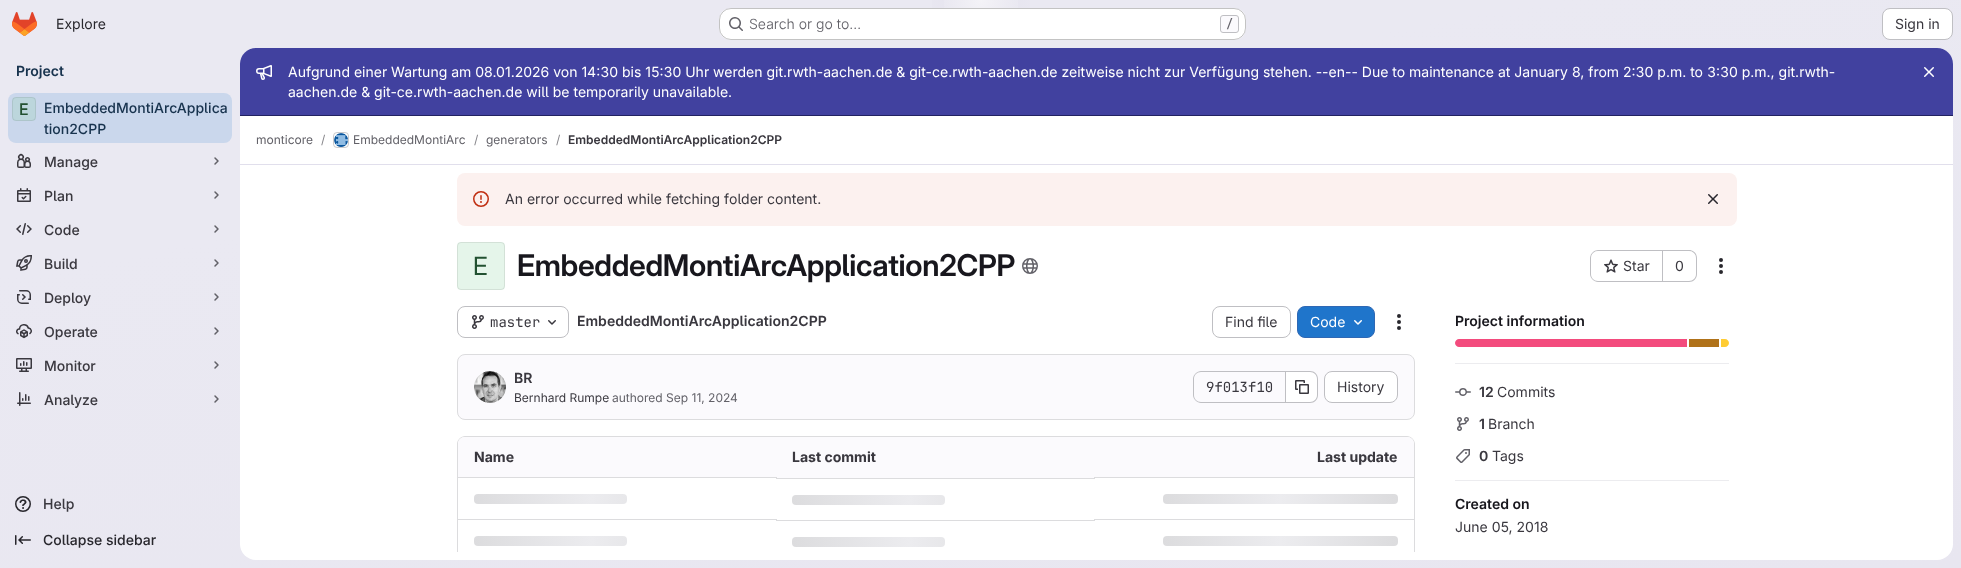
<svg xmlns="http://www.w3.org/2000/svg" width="1961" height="568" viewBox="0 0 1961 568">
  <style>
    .t1 { font: 14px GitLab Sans; fill: #28272d; }
    .t2 { font: 300 14px GitLab Sans; fill: #626168; }
    .t3 { font: 500 12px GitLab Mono; fill: #626168; }
    .t4 { font: 14px GitLab Sans; fill: #3a383f; }
    .t5 { font: 600 14px 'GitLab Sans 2'; fill: #18334e; }
    .t6 { font: 500 16px 'GitLab Sans 2'; fill: #225131; }
    .t7 { font: 500 14px GitLab Sans; fill: #18334e; }
    .t8 { font: 500 14px GitLab Sans; fill: #3a383f; }
    .t9 { font: 500 14px GitLab Sans; fill: #28272d; }
    .t10 { font: 14px GitLab Sans; fill: #fff; }
    .t11 { font: 12px GitLab Sans; fill: #626168; }
    .t12 { font: 12px GitLab Sans; fill: #89888d; }
    .t13 { font: 600 12px 'GitLab Sans 2'; fill: #3a383f; }
    .t14 { font: 25px 'GitLab Sans 2'; fill: #225131; }
    .t15 { font: 600 30px GitLab Sans; letter-spacing: -0.3px; fill: #18171d; }
    .t16 { font: 14px GitLab Mono; fill: #3a383f; }
    .t17 { font: 600 14px 'GitLab Sans 2'; fill: #3a383f; }
    .t18 { font: 12px GitLab Sans; fill: #3a383f; }
    .t19 { font: bold 14px GitLab Sans; fill: #3a383f; }
    .t20 { font: 600 14px 'GitLab Sans 2'; fill: #18171d; }
  </style>
  <defs>
    <linearGradient id="g1" gradientUnits="userSpaceOnUse" x1="1059" y1="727" x2="902" y2="-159"><stop offset="0" stop-color="#e8e6f0"/><stop offset="0.7" stop-color="#eae9f2"/></linearGradient>
    <radialGradient id="g2" gradientUnits="userSpaceOnUse" cx="0" cy="0" r="1" gradientTransform="matrix(981 0 0 568 981 0)"><stop offset="0" stop-color="#e4e2ed"/><stop offset="0.07" stop-color="#e4e2ed" stop-opacity="0"/></radialGradient>
    <radialGradient id="g3" gradientUnits="userSpaceOnUse" cx="981" cy="0" r="1133"><stop offset="0" stop-color="#fff" stop-opacity="0.6"/><stop offset="0.04" stop-color="#fff" stop-opacity="0"/></radialGradient>
    <clipPath id="clip1"><rect x="240" y="165" width="1713" height="387"/></clipPath>
    <linearGradient id="g4" gradientUnits="userSpaceOnUse" x1="474" y1="494" x2="709" y2="494"><stop offset="0" stop-color="#dcdcde"/><stop offset="0.5" stop-color="#ececef"/><stop offset="1" stop-color="#dcdcde"/></linearGradient>
    <linearGradient id="g5" gradientUnits="userSpaceOnUse" x1="792" y1="495" x2="1027" y2="495"><stop offset="0" stop-color="#dcdcde"/><stop offset="0.5" stop-color="#ececef"/><stop offset="1" stop-color="#dcdcde"/></linearGradient>
    <linearGradient id="g6" gradientUnits="userSpaceOnUse" x1="1163" y1="494" x2="1398" y2="494"><stop offset="0" stop-color="#dcdcde"/><stop offset="0.5" stop-color="#ececef"/><stop offset="1" stop-color="#dcdcde"/></linearGradient>
    <linearGradient id="g7" gradientUnits="userSpaceOnUse" x1="474" y1="536" x2="709" y2="536"><stop offset="0" stop-color="#dcdcde"/><stop offset="0.5" stop-color="#ececef"/><stop offset="1" stop-color="#dcdcde"/></linearGradient>
    <linearGradient id="g8" gradientUnits="userSpaceOnUse" x1="792" y1="537" x2="1027" y2="537"><stop offset="0" stop-color="#dcdcde"/><stop offset="0.5" stop-color="#ececef"/><stop offset="1" stop-color="#dcdcde"/></linearGradient>
    <linearGradient id="g9" gradientUnits="userSpaceOnUse" x1="1163" y1="536" x2="1398" y2="536"><stop offset="0" stop-color="#dcdcde"/><stop offset="0.5" stop-color="#ececef"/><stop offset="1" stop-color="#dcdcde"/></linearGradient>
  </defs>
  <rect width="100%" height="100%" fill="#fff"/>
  <rect x="0" y="0" width="1961" height="568" fill="url(#g1)"/>
  <rect x="932" y="0" width="98" height="8" fill="url(#g2)"/>
  <rect x="944" y="0" width="74" height="36" fill="url(#g3)"/>
  <image x="12" y="12" width="25" height="24" href="images/1.png"/>
  <text x="56" y="29" class="t1">Explore</text>
  <rect x="719" y="8" width="527" height="32" rx="12" fill="#fff"/>
  <rect x="719.5" y="8.5" width="526" height="31" rx="11.5" fill="none" stroke="#0505063d"/>
  <image x="729" y="17" width="14" height="14" href="images/2.png"/>
  <text x="749" y="29" class="t2">Search or go to…</text>
  <rect x="1220.5" y="15.5" width="18" height="17" rx="2.5" fill="#fbfafd" stroke="#bfbfc3"/>
  <text x="1226" y="28" class="t3">/</text>
  <rect x="1882.5" y="8.5" width="70" height="31" rx="7.5" fill="#fff" stroke="#bfbfc3"/>
  <text x="1895" y="29" class="t4">Sign in</text>
  <text x="16" y="76" class="t5">Project</text>
  <rect x="8" y="93" width="224" height="50" rx="8" fill="#cad7ec"/>
  <rect x="12" y="97" width="24" height="24" rx="4" fill="#bcd6dc"/>
  <rect x="12.5" y="97.5" width="23" height="23" rx="3.5" fill="none" stroke="#05050614"/>
  <text x="19" y="115" class="t6">E</text>
  <text x="44" y="113" class="t7">EmbeddedMontiArcApplica</text>
  <text x="44" y="134" class="t7">tion2CPP</text>
  <image x="17" y="153" width="14" height="15" href="images/3.png"/>
  <text x="44" y="167" class="t8">Manage</text>
  <path d="M215 158L218 161L215 164" fill="none" stroke="#626168" stroke-width="1.5" stroke-linecap="round" stroke-linejoin="round"/>
  <image x="17" y="188" width="14" height="14" href="images/4.png"/>
  <text x="44" y="201" class="t8">Plan</text>
  <path d="M215 192L218 195L215 198" fill="none" stroke="#626168" stroke-width="1.5" stroke-linecap="round" stroke-linejoin="round"/>
  <image x="16" y="223" width="16" height="12" href="images/5.png"/>
  <text x="44" y="235" class="t8">Code</text>
  <path d="M215 226L218 229L215 232" fill="none" stroke="#626168" stroke-width="1.5" stroke-linecap="round" stroke-linejoin="round"/>
  <image x="16" y="255" width="16" height="16" href="images/6.png"/>
  <text x="44" y="269" class="t8">Build</text>
  <path d="M215 260L218 263L215 266" fill="none" stroke="#626168" stroke-width="1.5" stroke-linecap="round" stroke-linejoin="round"/>
  <image x="17" y="290" width="14" height="14" href="images/7.png"/>
  <text x="44" y="303" class="t8">Deploy</text>
  <path d="M215 294L218 297L215 300" fill="none" stroke="#626168" stroke-width="1.5" stroke-linecap="round" stroke-linejoin="round"/>
  <image x="16" y="324" width="16" height="15" href="images/8.png"/>
  <text x="44" y="337" class="t8">Operate</text>
  <path d="M215 328L218 331L215 334" fill="none" stroke="#626168" stroke-width="1.5" stroke-linecap="round" stroke-linejoin="round"/>
  <image x="16" y="358" width="16" height="14" href="images/9.png"/>
  <text x="44" y="371" class="t8">Monitor</text>
  <path d="M215 362L218 365L215 368" fill="none" stroke="#626168" stroke-width="1.5" stroke-linecap="round" stroke-linejoin="round"/>
  <image x="17" y="392" width="14" height="14" href="images/10.png"/>
  <text x="44" y="405" class="t8">Analyze</text>
  <path d="M215 396L218 399L215 402" fill="none" stroke="#626168" stroke-width="1.5" stroke-linecap="round" stroke-linejoin="round"/>
  <image x="15" y="496" width="16" height="16" href="images/11.png"/>
  <text x="43" y="509" class="t8">Help</text>
  <image x="15" y="535" width="16" height="10" href="images/12.png"/>
  <text x="43" y="545" class="t9">Collapse sidebar</text>
  <rect x="240" y="48" width="1713" height="512" rx="16" fill="#fff"/>
  <path d="M256 48H1937C1946 48 1953 55 1953 64V116H240V64C240 55 247 48 256 48Z" fill="#41419f"/>
  <rect x="240" y="115" width="1713" height="1" fill="#222261"/>
  <image x="256" y="65" width="16" height="15" href="images/13.png"/>
  <text x="288" y="77" class="t10">Aufgrund einer Wartung am 08.01.2026 von 14:30 bis 15:30 Uhr werden git.rwth-aachen.de &amp; git-ce.rwth-aachen.de zeitweise nicht zur Verfügung stehen. --en-- Due to maintenance at January 8, from 2:30 p.m. to 3:30 p.m., git.rwth-</text>
  <text x="288" y="97" class="t10">aachen.de &amp; git-ce.rwth-aachen.de will be temporarily unavailable.</text>
  <image x="1924" y="67" width="10" height="10" href="images/14.png"/>
  <rect x="240" y="164" width="1713" height="1" fill="#e1dfec"/>
  <text x="256" y="144" class="t11">monticore</text>
  <text x="321" y="144" class="t12">/</text>
  <rect x="333.5" y="132.5" width="15" height="15" rx="3.5" fill="none" stroke="#dcdcde"/>
  <image x="334" y="133" width="14" height="14" href="images/15.png"/>
  <rect x="333.5" y="132.5" width="15" height="15" rx="3.5" fill="none" stroke="#05050614"/>
  <text x="353" y="144" class="t11">EmbeddedMontiArc</text>
  <text x="474" y="144" class="t12">/</text>
  <text x="486" y="144" class="t11">generators</text>
  <text x="556" y="144" class="t12">/</text>
  <text x="568" y="144" class="t13">EmbeddedMontiArcApplication2CPP</text>
  <rect x="457" y="173" width="1280" height="53" rx="8" fill="#fcf1ef"/>
  <image x="473" y="191" width="16" height="16" href="images/16.png"/>
  <text x="505" y="204" class="t4">An error occurred while fetching folder content.</text>
  <image x="1708" y="194" width="10" height="10" href="images/17.png"/>
  <rect x="457" y="242" width="48" height="48" rx="4" fill="#e5f5ea"/>
  <rect x="457.5" y="242.5" width="47" height="47" rx="3.5" fill="none" stroke="#05050614"/>
  <text x="473" y="275" class="t14">E</text>
  <text x="517" y="276" class="t15">EmbeddedMontiArcApplication2CPP</text>
  <image x="1022" y="258" width="16" height="16" href="images/18.png"/>
  <path d="M1598 250H1662V282H1598C1594 282 1590 278 1590 274V258C1590 254 1594 250 1598 250ZM1598 251H1662V281H1598C1594 281 1591 278 1591 274V258C1591 254 1594 251 1598 251Z" fill="#bfbfc3" fill-rule="evenodd"/>
  <image x="1604" y="259" width="14" height="14" href="images/19.png"/>
  <text x="1623" y="271" class="t4">Star</text>
  <path d="M1663 250H1689C1693.5 250 1697 253.5 1697 258V274C1697 278.5 1693.5 282 1689 282H1663ZM1663 251H1689C1693 251 1696 254 1696 258V274C1696 278 1693 281 1689 281H1663Z" fill="#bfbfc3" fill-rule="evenodd"/>
  <rect x="1662" y="250" width="1" height="32" fill="#bfbfc3"/>
  <text x="1675" y="271" class="t4">0</text>
  <image x="1719" y="258" width="4" height="16" href="images/20.png"/>
  <rect x="457.5" y="306.5" width="111" height="31" rx="7.5" fill="none" stroke="#bfbfc3"/>
  <image x="472" y="315" width="12" height="14" href="images/21.png"/>
  <text x="490" y="327" class="t16">master</text>
  <image x="548" y="320" width="8" height="5" href="images/22.png"/>
  <text x="577" y="326" class="t17">EmbeddedMontiArcApplication2CPP</text>
  <rect x="1212.5" y="306.5" width="78" height="31" rx="7.5" fill="none" stroke="#bfbfc3"/>
  <text x="1225" y="327" class="t4">Find file</text>
  <rect x="1297.5" y="306.5" width="77" height="31" rx="7.5" fill="#1f75cb" stroke="#2f68b4"/>
  <text x="1310" y="327" class="t10">Code</text>
  <image x="1354" y="320" width="8" height="5" href="images/23.png"/>
  <image x="1397" y="314" width="4" height="16" href="images/20.png"/>
  <rect x="457.5" y="354.5" width="957" height="65" rx="7.5" fill="#fbfafd" stroke="#dcdcde"/>
  <image x="474" y="371" width="32" height="32" href="images/24.png"/>
  <circle cx="490" cy="387" r="15.5" fill="none" stroke="#05050614"/>
  <text x="514" y="383" class="t17">BR</text>
  <text x="514" y="402" class="t18">Bernhard Rumpe</text>
  <text x="612" y="402" class="t11">authored Sep 11, 2024</text>
  <path d="M1201 371H1285V403H1201C1197 403 1193 399 1193 395V379C1193 375 1197 371 1201 371ZM1201 372H1285V402H1201C1197 402 1194 399 1194 395V379C1194 375 1197 372 1201 372Z" fill="#bfbfc3" fill-rule="evenodd"/>
  <text x="1206" y="392" class="t16">9f013f10</text>
  <path d="M1286 372H1310C1314 372 1317 375 1317 379V395C1317 399 1314 402 1310 402H1286Z" fill="#fff"/>
  <path d="M1286 371H1310C1314.5 371 1318 374.5 1318 379V395C1318 399.5 1314.5 403 1310 403H1286ZM1286 372H1310C1314 372 1317 375 1317 379V395C1317 399 1314 402 1310 402H1286Z" fill="#bfbfc3" fill-rule="evenodd"/>
  <rect x="1285" y="371" width="1" height="32" fill="#bfbfc3"/>
  <image x="1295" y="380" width="14" height="14" href="images/25.png"/>
  <rect x="1324.5" y="371.5" width="73" height="31" rx="7.5" fill="#fff" stroke="#bfbfc3"/>
  <text x="1337" y="392" class="t4">History</text>
  <g clip-path="url(#clip1)">
    <path d="M465 436C461 436 457 440 457 444V560H458V444C458 440 461 437 465 437H1407C1411 437 1414 440 1414 444V560H1415V444C1415 440 1411 436 1407 436Z" fill="#dcdcde"/>
  </g>
  <path d="M465 437H776V478H458V444C458 440 461 437 465 437Z" fill="#fbfafd"/>
  <text x="474" y="462" class="t19">Name</text>
  <rect x="776" y="437" width="319" height="41" fill="#fbfafd"/>
  <text x="792" y="462" class="t19">Last commit</text>
  <path d="M1095 437H1407C1411 437 1414 440 1414 444V478H1095Z" fill="#fbfafd"/>
  <text x="1317" y="462" class="t19">Last update</text>
  <rect x="458" y="477" width="319" height="1" fill="#dcdcde"/>
  <rect x="474" y="494" width="153" height="10" rx="4" fill="url(#g4)"/>
  <rect x="776" y="478" width="319" height="1" fill="#dcdcde"/>
  <rect x="792" y="495" width="153" height="10" rx="4" fill="url(#g5)"/>
  <rect x="1094" y="477" width="320" height="1" fill="#dcdcde"/>
  <rect x="1163" y="494" width="235" height="10" rx="4" fill="url(#g6)"/>
  <rect x="458" y="519" width="319" height="1" fill="#dcdcde"/>
  <rect x="474" y="536" width="153" height="10" rx="4" fill="url(#g7)"/>
  <rect x="776" y="520" width="319" height="1" fill="#dcdcde"/>
  <rect x="792" y="537" width="153" height="10" rx="4" fill="url(#g8)"/>
  <rect x="1094" y="519" width="320" height="1" fill="#dcdcde"/>
  <rect x="1163" y="536" width="235" height="10" rx="4" fill="url(#g9)"/>
  <rect x="1455" y="363" width="274" height="1" fill="#ececef"/>
  <text x="1455" y="326" class="t20">Project information</text>
  <path d="M1459 339H1687V347H1459C1457 347 1455 345 1455 343C1455 341 1457 339 1459 339Z" fill="#f34b7d"/>
  <rect x="1689" y="339" width="30" height="8" fill="#b07219"/>
  <path d="M1721 339H1725C1727 339 1729 341 1729 343C1729 345 1727 347 1725 347H1721Z" fill="#fc3"/>
  <rect x="1455" y="480" width="274" height="1" fill="#ececef"/>
  <image x="1455" y="388" width="16" height="8" href="images/26.png"/>
  <text x="1479" y="397" class="t17">12</text>
  <text x="1497" y="397" class="t4">Commits</text>
  <image x="1457" y="417" width="12" height="14" href="images/27.png"/>
  <text x="1479" y="429" class="t17">1</text>
  <text x="1488" y="429" class="t4">Branch</text>
  <image x="1456" y="449" width="14" height="14" href="images/28.png"/>
  <text x="1479" y="461" class="t17">0</text>
  <text x="1492" y="461" class="t4">Tags</text>
  <text x="1455" y="509" class="t20">Created on</text>
  <text x="1455" y="532" class="t4">June 05, 2018</text>
</svg>
